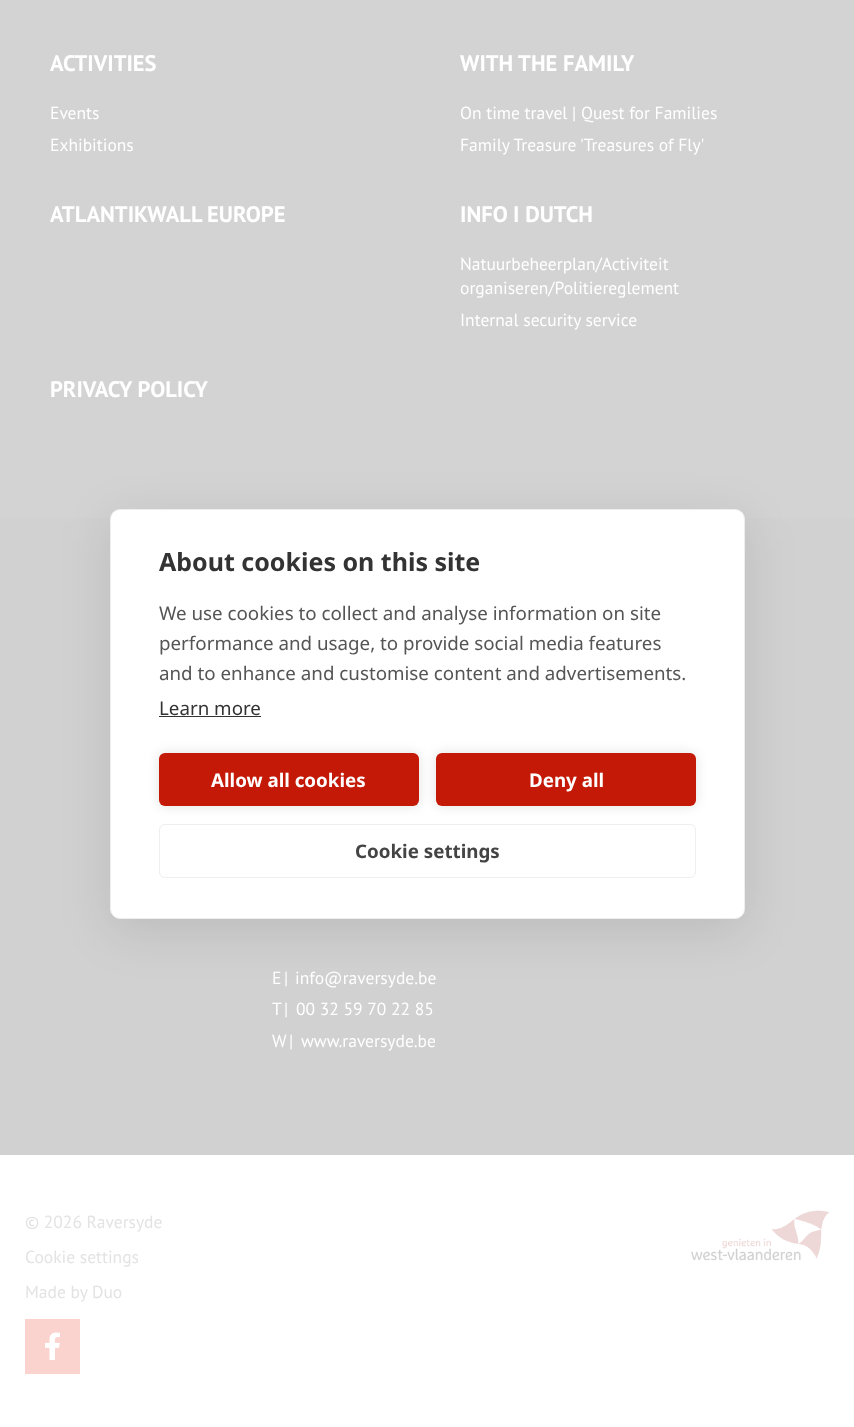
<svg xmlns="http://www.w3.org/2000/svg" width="854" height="1427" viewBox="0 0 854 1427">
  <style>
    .t1 { font: bold 22.5px PT Sans; fill: #fff; }
    .t2 { font: 17.5px PT Sans; fill: #fff; }
    .t3 { font: 17.5px PT Sans; fill: #e4e3e3; }
    .t4 { font: bold 25px Noto Sans; fill: #333; }
    .t5 { font: 18.75px Noto Sans; fill: #555; }
    .t6 { font: 18.75px Noto Sans; fill: #333; }
    .t7 { font: bold 18.75px Noto Sans; fill: #fff; }
    .t8 { font: bold 18.75px Noto Sans; fill: #444; }
  </style>
  <rect width="100%" height="100%" fill="#fff"/>
  <rect x="0" y="0" width="854" height="518" fill="#d3d3d3"/>
  <text x="50" y="71" class="t1">ACTIVITIES</text>
  <text x="50" y="119" class="t2">Events</text>
  <text x="50" y="151" class="t2">Exhibitions</text>
  <text x="460" y="71" class="t1">WITH THE FAMILY</text>
  <text x="460" y="119" class="t2">On time travel | Quest for Families</text>
  <text x="460" y="151" class="t2">Family Treasure 'Treasures of Fly'</text>
  <text x="50" y="222" class="t1">ATLANTIKWALL EUROPE</text>
  <text x="460" y="222" class="t1">INFO I DUTCH</text>
  <text x="460" y="270" class="t2">Natuurbeheerplan/Activiteit</text>
  <text x="460" y="294" class="t2">organiseren/Politiereglement</text>
  <text x="460" y="326" class="t2">Internal security service</text>
  <text x="50" y="397" class="t1">PRIVACY POLICY</text>
  <rect x="0" y="518" width="854" height="637" fill="#d1d1d1"/>
  <text x="272" y="984" class="t2">E</text>
  <text x="284" y="984" class="t2">|</text>
  <text x="295" y="984" class="t2">info@raversyde.be</text>
  <text x="272" y="1015" class="t2">T</text>
  <text x="284" y="1015" class="t2">|</text>
  <text x="296" y="1015" class="t2">00 32 59 70 22 85</text>
  <text x="272" y="1047" class="t2">W</text>
  <text x="289" y="1047" class="t2">|</text>
  <text x="301" y="1047" class="t2">www.raversyde.be</text>
  <text x="25" y="1228" class="t3">© 2026 Raversyde</text>
  <text x="25" y="1263" class="t3">Cookie settings</text>
  <text x="25" y="1298" class="t3">Made by Duo</text>
  <rect x="25" y="1319" width="55" height="55" fill="#fad2ce"/>
  <image x="45" y="1332" width="15" height="29" href="images/1.png"/>
  <image x="690" y="1210" width="140" height="51" href="images/2.png"/>
  <rect x="110" y="521" width="635" height="410" rx="10" fill="#0000001a" filter="blur(25px)"/>
  <rect x="110.5" y="509.5" width="634" height="409" rx="9.5" fill="#fff" stroke="#eee"/>
  <text x="159" y="571" class="t4">About cookies on this site</text>
  <text x="159" y="620" class="t5">We use cookies to collect and analyse information on site</text>
  <text x="159" y="650" class="t5">performance and usage, to provide social media features</text>
  <text x="159" y="680" class="t5">and to enhance and customise content and advertisements.</text>
  <text x="159" y="715" class="t6">Learn more</text>
  <rect x="159" y="716" width="102" height="1" fill="#333"/>
  <rect x="159" y="753" width="260" height="53" rx="6" fill="#0000001f" filter="blur(6px)"/>
  <rect x="159" y="753" width="260" height="53" rx="6" fill="#c31906"/>
  <text x="211" y="787" class="t7">Allow all cookies</text>
  <rect x="436" y="753" width="260" height="53" rx="6" fill="#0000001f" filter="blur(6px)"/>
  <rect x="436" y="753" width="260" height="53" rx="6" fill="#c31906"/>
  <text x="529" y="787" class="t7">Deny all</text>
  <rect x="159.5" y="824.5" width="536" height="53" rx="5.5" fill="none" stroke="#eee"/>
  <text x="355" y="858" class="t8">Cookie settings</text>
</svg>
